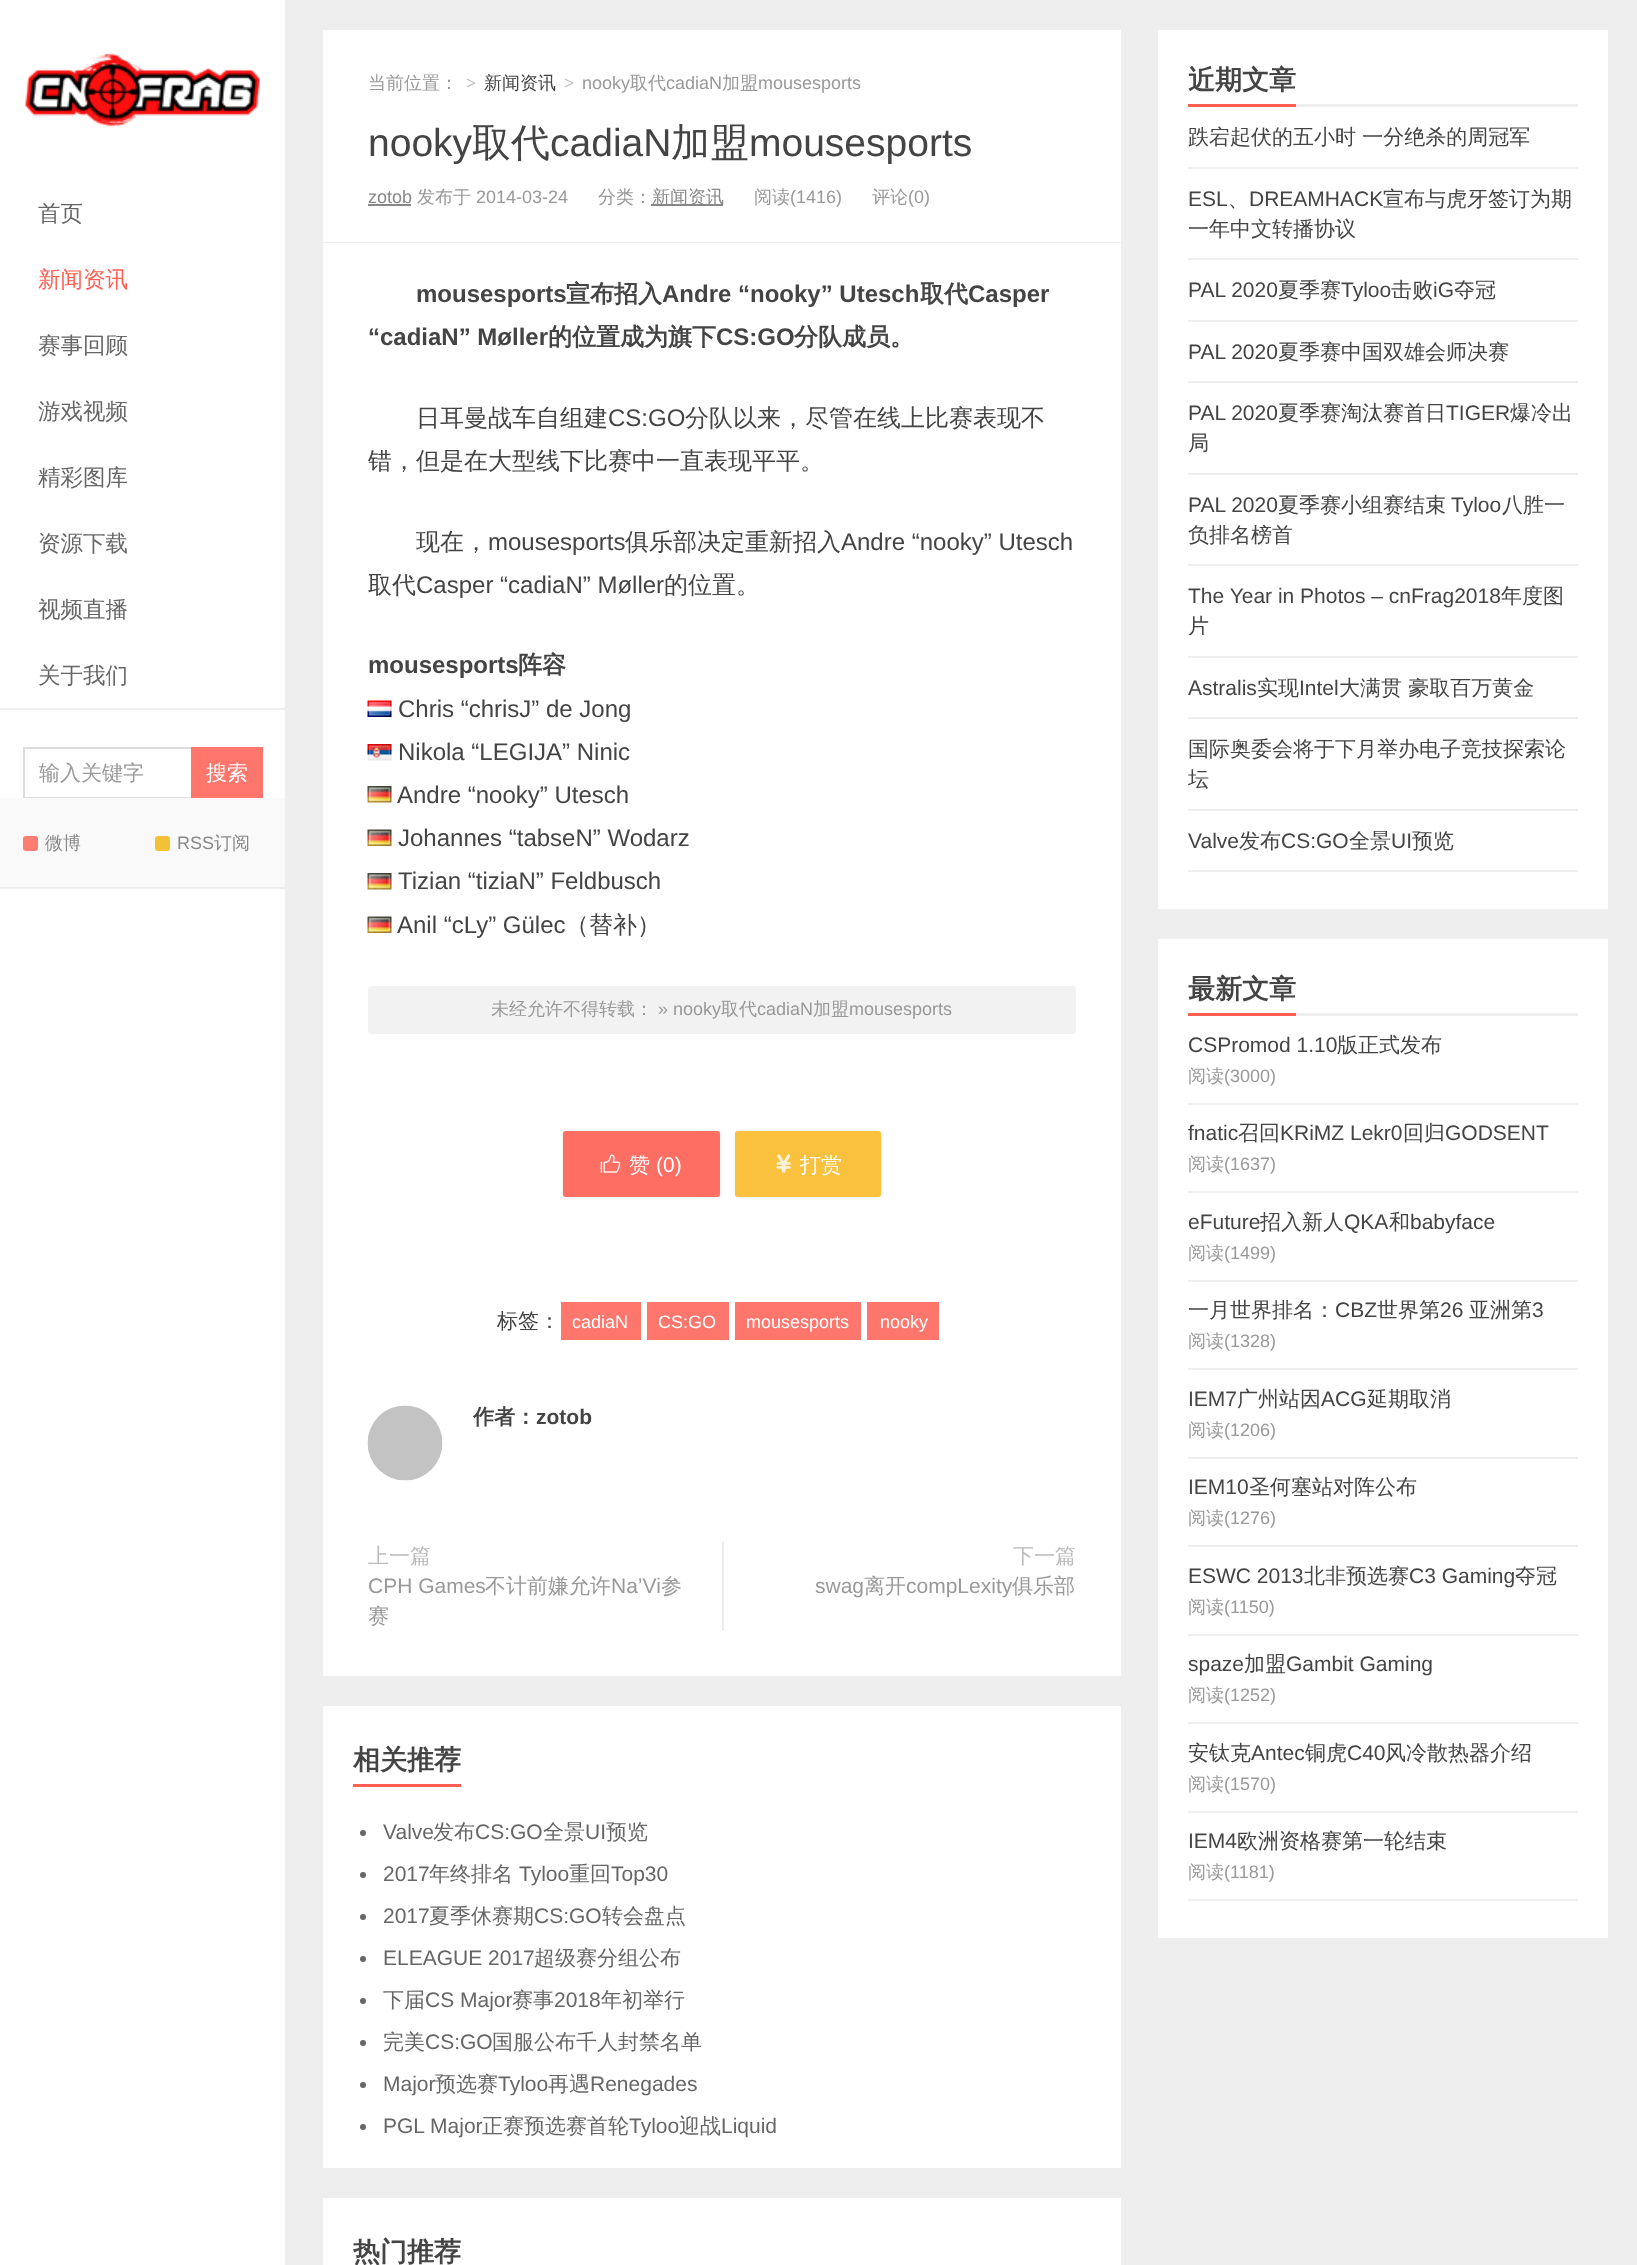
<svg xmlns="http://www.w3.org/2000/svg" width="1637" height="2265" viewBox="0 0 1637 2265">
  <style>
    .t1 { font: 500 22.5px WenQuanYi Zen Hei; fill: #666; }
    .t2 { font: 500 22.5px WenQuanYi Zen Hei; fill: #ff5e52; }
    .t3 { font: 500 21px WenQuanYi Zen Hei; fill: #999; }
    .t4 { font: 500 21px WenQuanYi Zen Hei; fill: #fff; }
    .t5 { font: 500 18px WenQuanYi Zen Hei; fill: #888; }
    .t6 { font: 18px Liberation Sans; fill: #888; }
    .t7 { font: 500 18px WenQuanYi Zen Hei; fill: #999; }
    .t8 { font: bold 18px Liberation Serif; fill: #bbb; }
    .t9 { font: 500 18px WenQuanYi Zen Hei; fill: #444; }
    .t10 { font: 18px Liberation Sans; fill: #999; }
    .t11 { font: 39px Liberation Sans; fill: #444; }
    .t12 { font: 500 39px WenQuanYi Zen Hei; fill: #444; }
    .t13 { font: bold 24px Liberation Sans; fill: #444; }
    .t14 { font: bold 24px WenQuanYi Zen Hei; fill: #444; }
    .t15 { font: 500 24px WenQuanYi Zen Hei; fill: #444; }
    .t16 { font: 24px Liberation Sans; fill: #444; }
    .t17 { font: 21px Liberation Sans; fill: #fff; }
    .t18 { font: 500 21px WenQuanYi Zen Hei; fill: #444; }
    .t19 { font: 18px Liberation Sans; fill: #fff; }
    .t20 { font: bold 21px WenQuanYi Zen Hei; fill: #444; }
    .t21 { font: bold 21px Liberation Sans; fill: #444; }
    .t22 { font: 500 21px WenQuanYi Zen Hei; fill: #bbb; }
    .t23 { font: 21px Liberation Sans; fill: #999; }
    .t24 { font: bold 27px WenQuanYi Zen Hei; fill: #444; }
    .t25 { font: 21px Liberation Sans; fill: #666; }
    .t26 { font: 500 21px WenQuanYi Zen Hei; fill: #666; }
    .t27 { font: 21px Liberation Sans; fill: #444; }
  </style>
  <rect width="100%" height="100%" fill="#eee"/>
  <rect x="0" y="180" width="285" height="2085" fill="#fff"/>
  <image x="0" y="0" width="285" height="180" href="images/1.png"/>
  <rect x="0" y="708" width="285" height="2" fill="#eee"/>
  <text x="38" y="221" class="t1">首页</text>
  <text x="38" y="287" class="t2">新闻资讯</text>
  <text x="38" y="353" class="t1">赛事回顾</text>
  <text x="38" y="419" class="t1">游戏视频</text>
  <text x="38" y="485" class="t1">精彩图库</text>
  <text x="38" y="551" class="t1">资源下载</text>
  <text x="38" y="617" class="t1">视频直播</text>
  <text x="38" y="683" class="t1">关于我们</text>
  <rect x="23" y="747" width="168" height="2" fill="#ddd"/>
  <rect x="23" y="797" width="168" height="1" fill="#ddd"/>
  <rect x="23" y="747" width="2" height="51" fill="#ddd"/>
  <text x="39" y="780" class="t3">输入关键字</text>
  <rect x="191" y="747" width="72" height="51" fill="#ff766c"/>
  <text x="206" y="780" class="t4">搜索</text>
  <rect x="0" y="798" width="285" height="89" fill="#f9f9f9"/>
  <rect x="0" y="887" width="285" height="2" fill="#eee"/>
  <rect x="23" y="836" width="15" height="15" rx="3" fill="#fe7d73"/>
  <text x="45" y="849" class="t5">微博</text>
  <rect x="155" y="836" width="15" height="15" rx="3" fill="#f3c136"/>
  <text x="177" y="849" class="t6">RSS</text>
  <text x="214" y="849" class="t5">订阅</text>
  <rect x="323" y="30" width="798" height="212" fill="#fff"/>
  <text x="368" y="89" class="t7">当前位置：</text>
  <text x="466" y="89" class="t8">&gt;</text>
  <text x="484" y="89" class="t9">新闻资讯</text>
  <text x="564" y="89" class="t8">&gt;</text>
  <text x="582" y="89" class="t10">nooky</text>
  <text x="630" y="89" class="t7">取代</text>
  <text x="666" y="89" class="t10">cadiaN</text>
  <text x="722" y="89" class="t7">加盟</text>
  <text x="758" y="89" class="t10">mousesports</text>
  <text x="368" y="156" class="t11">nooky</text>
  <text x="472" y="156" class="t12">取代</text>
  <text x="550" y="156" class="t11">cadiaN</text>
  <text x="671" y="156" class="t12">加盟</text>
  <text x="749" y="156" class="t11">mousesports</text>
  <text x="368" y="203" class="t6">zotob</text>
  <rect x="368" y="204" width="43" height="2" fill="#888"/>
  <text x="417" y="203" class="t7">发布于</text>
  <text x="476" y="203" class="t10">2014-03-24</text>
  <text x="598" y="203" class="t7">分类：</text>
  <rect x="651" y="204" width="72" height="2" fill="#888"/>
  <text x="652" y="203" class="t5">新闻资讯</text>
  <text x="754" y="203" class="t7">阅读</text>
  <text x="790" y="203" class="t10">(1416)</text>
  <text x="872" y="203" class="t7">评论</text>
  <text x="908" y="203" class="t10">(0)</text>
  <rect x="323" y="243" width="798" height="984" fill="#fff"/>
  <text x="416" y="302" class="t13">mousesports</text>
  <text x="566" y="302" class="t14">宣布招入</text>
  <text x="662" y="302" class="t13">Andre “nooky” Utesch</text>
  <text x="920" y="302" class="t14">取代</text>
  <text x="968" y="302" class="t13">Casper</text>
  <text x="368" y="345" class="t13">“cadiaN” Møller</text>
  <text x="548" y="345" class="t14">的位置成为旗下</text>
  <text x="716" y="345" class="t13">CS:GO</text>
  <text x="794" y="345" class="t14">分队成员。</text>
  <text x="416" y="426" class="t15">日耳曼战车自组建</text>
  <text x="608" y="426" class="t16">CS:GO</text>
  <text x="685" y="426" class="t15">分队以来，尽管在线上比赛表现不</text>
  <text x="368" y="469" class="t15">错，但是在大型线下比赛中一直表现平平。</text>
  <text x="416" y="550" class="t15">现在，</text>
  <text x="488" y="550" class="t16">mousesports</text>
  <text x="625" y="550" class="t15">俱乐部决定重新招入</text>
  <text x="841" y="550" class="t16">Andre “nooky” Utesch</text>
  <text x="368" y="593" class="t15">取代</text>
  <text x="416" y="593" class="t16">Casper “cadiaN” Møller</text>
  <text x="664" y="593" class="t15">的位置。</text>
  <text x="368" y="673" class="t13">mousesports</text>
  <text x="518" y="673" class="t14">阵容</text>
  <image x="367" y="700" width="25" height="17" href="images/2.png"/>
  <text x="398" y="717" class="t16">Chris “chrisJ” de Jong</text>
  <image x="367" y="744" width="25" height="17" href="images/3.png"/>
  <text x="398" y="760" class="t16">Nikola “LEGIJA” Ninic</text>
  <image x="367" y="786" width="25" height="17" href="images/4.png"/>
  <text x="397" y="803" class="t16">Andre “nooky” Utesch</text>
  <image x="367" y="829" width="25" height="17" href="images/5.png"/>
  <text x="398" y="846" class="t16">Johannes “tabseN” Wodarz</text>
  <image x="367" y="873" width="25" height="17" href="images/4.png"/>
  <text x="398" y="889" class="t16">Tizian “tiziaN” Feldbusch</text>
  <image x="367" y="916" width="25" height="17" href="images/5.png"/>
  <text x="397" y="933" class="t16">Anil “cLy” Gülec</text>
  <text x="565" y="933" class="t15">（替补）</text>
  <rect x="368" y="986" width="708" height="48" rx="3" fill="#f2f2f2"/>
  <text x="491" y="1015" class="t7">未经允许不得转载：</text>
  <text x="658" y="1015" class="t10">» nooky</text>
  <text x="721" y="1015" class="t7">取代</text>
  <text x="757" y="1015" class="t10">cadiaN</text>
  <text x="813" y="1015" class="t7">加盟</text>
  <text x="849" y="1015" class="t10">mousesports</text>
  <rect x="563" y="1131" width="157" height="66" rx="3" fill="#1a1a1a1f" filter="blur(1.5px)"/>
  <rect x="563" y="1131" width="157" height="66" rx="3" fill="#ff6e63"/>
  <image x="600" y="1154" width="21" height="19" href="images/6.png"/>
  <text x="629" y="1172" class="t4">赞</text>
  <text x="656" y="1172" class="t17">(0)</text>
  <rect x="735" y="1131" width="146" height="66" rx="3" fill="#3333331f" filter="blur(1.5px)"/>
  <rect x="735" y="1131" width="146" height="66" rx="3" fill="#f9c13d"/>
  <image x="776" y="1154" width="15" height="19" href="images/7.png"/>
  <text x="800" y="1172" class="t4">打赏</text>
  <rect x="323" y="1227" width="798" height="449" fill="#fff"/>
  <text x="497" y="1328" class="t18">标签：</text>
  <rect x="561" y="1302" width="80" height="38" fill="#ff766c"/>
  <text x="572" y="1328" class="t19">cadiaN</text>
  <rect x="647" y="1302" width="82" height="38" fill="#ff766c"/>
  <text x="658" y="1328" class="t19">CS:GO</text>
  <rect x="735" y="1302" width="126" height="38" fill="#ff766c"/>
  <text x="746" y="1328" class="t19">mousesports</text>
  <rect x="867" y="1302" width="72" height="38" fill="#ff766c"/>
  <text x="880" y="1328" class="t19">nooky</text>
  <image x="367" y="1405" width="76" height="76" href="images/8.png"/>
  <text x="473" y="1424" class="t20">作者：</text>
  <text x="536" y="1424" class="t21">zotob</text>
  <text x="368" y="1563" class="t22">上一篇</text>
  <rect x="722" y="1541" width="2" height="90" fill="#eee"/>
  <text x="368" y="1593" class="t23">CPH Games</text>
  <text x="485" y="1593" class="t3">不计前嫌允许</text>
  <text x="611" y="1593" class="t23">Na’Vi</text>
  <text x="661" y="1593" class="t3">参</text>
  <text x="368" y="1623" class="t3">赛</text>
  <text x="1013" y="1563" class="t22">下一篇</text>
  <text x="815" y="1593" class="t23">swag</text>
  <text x="864" y="1593" class="t3">离开</text>
  <text x="906" y="1593" class="t23">compLexity</text>
  <text x="1012" y="1593" class="t3">俱乐部</text>
  <rect x="323" y="1706" width="798" height="462" fill="#fff"/>
  <rect x="353" y="1784" width="108" height="3" fill="#ff5e52"/>
  <text x="353" y="1769" class="t24">相关推荐</text>
  <circle cx="363" cy="1833" r="3" fill="#666"/>
  <text x="383" y="1839" class="t25">Valve</text>
  <text x="433" y="1839" class="t26">发布</text>
  <text x="475" y="1839" class="t25">CS:GO</text>
  <text x="543" y="1839" class="t26">全景</text>
  <text x="585" y="1839" class="t25">UI</text>
  <text x="606" y="1839" class="t26">预览</text>
  <circle cx="363" cy="1875" r="3" fill="#666"/>
  <text x="383" y="1881" class="t25">2017</text>
  <text x="429" y="1881" class="t26">年终排名</text>
  <text x="519" y="1881" class="t25">Tyloo</text>
  <text x="569" y="1881" class="t26">重回</text>
  <text x="611" y="1881" class="t25">Top30</text>
  <circle cx="363" cy="1917" r="3" fill="#666"/>
  <text x="383" y="1923" class="t25">2017</text>
  <text x="429" y="1923" class="t26">夏季休赛期</text>
  <text x="534" y="1923" class="t25">CS:GO</text>
  <text x="602" y="1923" class="t26">转会盘点</text>
  <circle cx="363" cy="1959" r="3" fill="#666"/>
  <text x="383" y="1965" class="t25">ELEAGUE 2017</text>
  <text x="534" y="1965" class="t26">超级赛分组公布</text>
  <circle cx="363" cy="2001" r="3" fill="#666"/>
  <text x="383" y="2007" class="t26">下届</text>
  <text x="425" y="2007" class="t25">CS Major</text>
  <text x="512" y="2007" class="t26">赛事</text>
  <text x="554" y="2007" class="t25">2018</text>
  <text x="601" y="2007" class="t26">年初举行</text>
  <circle cx="363" cy="2043" r="3" fill="#666"/>
  <text x="383" y="2049" class="t26">完美</text>
  <text x="425" y="2049" class="t25">CS:GO</text>
  <text x="492" y="2049" class="t26">国服公布千人封禁名单</text>
  <circle cx="363" cy="2085" r="3" fill="#666"/>
  <text x="383" y="2091" class="t25">Major</text>
  <text x="435" y="2091" class="t26">预选赛</text>
  <text x="498" y="2091" class="t25">Tyloo</text>
  <text x="548" y="2091" class="t26">再遇</text>
  <text x="590" y="2091" class="t25">Renegades</text>
  <circle cx="363" cy="2127" r="3" fill="#666"/>
  <text x="383" y="2133" class="t25">PGL Major</text>
  <text x="482" y="2133" class="t26">正赛预选赛首轮</text>
  <text x="629" y="2133" class="t25">Tyloo</text>
  <text x="679" y="2133" class="t26">迎战</text>
  <text x="721" y="2133" class="t25">Liquid</text>
  <rect x="323" y="2198" width="798" height="67" fill="#fff"/>
  <text x="353" y="2261" class="t24">热门推荐</text>
  <rect x="1158" y="30" width="450" height="879" fill="#fff"/>
  <rect x="1296" y="104" width="282" height="3" fill="#eee"/>
  <rect x="1188" y="104" width="108" height="3" fill="#ff5e52"/>
  <text x="1188" y="89" class="t24">近期文章</text>
  <rect x="1188" y="167" width="390" height="2" fill="#eee"/>
  <text x="1188" y="144" class="t18">跌宕起伏的五小时 一分绝杀的周冠军</text>
  <rect x="1188" y="258" width="390" height="2" fill="#eee"/>
  <text x="1188" y="206" class="t27">ESL</text>
  <text x="1228" y="206" class="t18">、</text>
  <text x="1249" y="206" class="t27">DREAMHACK</text>
  <text x="1383" y="206" class="t18">宣布与虎牙签订为期</text>
  <text x="1188" y="236" class="t18">一年中文转播协议</text>
  <rect x="1188" y="320" width="390" height="2" fill="#eee"/>
  <text x="1188" y="297" class="t27">PAL 2020</text>
  <text x="1278" y="297" class="t18">夏季赛</text>
  <text x="1341" y="297" class="t27">Tyloo</text>
  <text x="1391" y="297" class="t18">击败</text>
  <text x="1433" y="297" class="t27">iG</text>
  <text x="1454" y="297" class="t18">夺冠</text>
  <rect x="1188" y="381" width="390" height="2" fill="#eee"/>
  <text x="1188" y="359" class="t27">PAL 2020</text>
  <text x="1278" y="359" class="t18">夏季赛中国双雄会师决赛</text>
  <rect x="1188" y="473" width="390" height="2" fill="#eee"/>
  <text x="1188" y="420" class="t27">PAL 2020</text>
  <text x="1278" y="420" class="t18">夏季赛淘汰赛首日</text>
  <text x="1446" y="420" class="t27">TIGER</text>
  <text x="1510" y="420" class="t18">爆冷出</text>
  <text x="1188" y="450" class="t18">局</text>
  <rect x="1188" y="564" width="390" height="2" fill="#eee"/>
  <text x="1188" y="512" class="t27">PAL 2020</text>
  <text x="1278" y="512" class="t18">夏季赛小组赛结束</text>
  <text x="1451" y="512" class="t27">Tyloo</text>
  <text x="1502" y="512" class="t18">八胜一</text>
  <text x="1188" y="542" class="t18">负排名榜首</text>
  <rect x="1188" y="656" width="390" height="2" fill="#eee"/>
  <text x="1188" y="603" class="t27">The Year in Photos – cnFrag2018</text>
  <text x="1501" y="603" class="t18">年度图</text>
  <text x="1188" y="633" class="t18">片</text>
  <rect x="1188" y="717" width="390" height="2" fill="#eee"/>
  <text x="1188" y="695" class="t27">Astralis</text>
  <text x="1257" y="695" class="t18">实现</text>
  <text x="1299" y="695" class="t27">Intel</text>
  <text x="1339" y="695" class="t18">大满贯 豪取百万黄金</text>
  <rect x="1188" y="809" width="390" height="2" fill="#eee"/>
  <text x="1188" y="756" class="t18">国际奥委会将于下月举办电子竞技探索论</text>
  <text x="1188" y="786" class="t18">坛</text>
  <rect x="1188" y="870" width="390" height="2" fill="#eee"/>
  <text x="1188" y="848" class="t27">Valve</text>
  <text x="1239" y="848" class="t18">发布</text>
  <text x="1281" y="848" class="t27">CS:GO</text>
  <text x="1349" y="848" class="t18">全景</text>
  <text x="1391" y="848" class="t27">UI</text>
  <text x="1412" y="848" class="t18">预览</text>
  <rect x="1158" y="939" width="450" height="999" fill="#fff"/>
  <rect x="1296" y="1013" width="282" height="3" fill="#eee"/>
  <rect x="1188" y="1013" width="108" height="3" fill="#ff5e52"/>
  <text x="1188" y="998" class="t24">最新文章</text>
  <rect x="1188" y="1103" width="390" height="2" fill="#eee"/>
  <text x="1188" y="1052" class="t27">CSPromod 1.10</text>
  <text x="1337" y="1052" class="t18">版正式发布</text>
  <text x="1188" y="1082" class="t7">阅读</text>
  <text x="1224" y="1082" class="t10">(3000)</text>
  <rect x="1188" y="1191" width="390" height="2" fill="#eee"/>
  <text x="1188" y="1140" class="t27">fnatic</text>
  <text x="1238" y="1140" class="t18">召回</text>
  <text x="1280" y="1140" class="t27">KRiMZ Lekr0</text>
  <text x="1403" y="1140" class="t18">回归</text>
  <text x="1445" y="1140" class="t27">GODSENT</text>
  <text x="1188" y="1170" class="t7">阅读</text>
  <text x="1224" y="1170" class="t10">(1637)</text>
  <rect x="1188" y="1280" width="390" height="2" fill="#eee"/>
  <text x="1188" y="1229" class="t27">eFuture</text>
  <text x="1260" y="1229" class="t18">招入新人</text>
  <text x="1344" y="1229" class="t27">QKA</text>
  <text x="1389" y="1229" class="t18">和</text>
  <text x="1410" y="1229" class="t27">babyface</text>
  <text x="1188" y="1259" class="t7">阅读</text>
  <text x="1224" y="1259" class="t10">(1499)</text>
  <rect x="1188" y="1368" width="390" height="2" fill="#eee"/>
  <text x="1188" y="1317" class="t18">一月世界排名：</text>
  <text x="1335" y="1317" class="t27">CBZ</text>
  <text x="1377" y="1317" class="t18">世界第</text>
  <text x="1440" y="1317" class="t27">26</text>
  <text x="1469" y="1317" class="t18">亚洲第</text>
  <text x="1532" y="1317" class="t27">3</text>
  <text x="1188" y="1347" class="t7">阅读</text>
  <text x="1224" y="1347" class="t10">(1328)</text>
  <rect x="1188" y="1457" width="390" height="2" fill="#eee"/>
  <text x="1188" y="1406" class="t27">IEM7</text>
  <text x="1237" y="1406" class="t18">广州站因</text>
  <text x="1321" y="1406" class="t27">ACG</text>
  <text x="1367" y="1406" class="t18">延期取消</text>
  <text x="1188" y="1436" class="t7">阅读</text>
  <text x="1224" y="1436" class="t10">(1206)</text>
  <rect x="1188" y="1545" width="390" height="2" fill="#eee"/>
  <text x="1188" y="1494" class="t27">IEM10</text>
  <text x="1249" y="1494" class="t18">圣何塞站对阵公布</text>
  <text x="1188" y="1524" class="t7">阅读</text>
  <text x="1224" y="1524" class="t10">(1276)</text>
  <rect x="1188" y="1634" width="390" height="2" fill="#eee"/>
  <text x="1188" y="1583" class="t27">ESWC 2013</text>
  <text x="1304" y="1583" class="t18">北非预选赛</text>
  <text x="1409" y="1583" class="t27">C3 Gaming</text>
  <text x="1515" y="1583" class="t18">夺冠</text>
  <text x="1188" y="1613" class="t7">阅读</text>
  <text x="1224" y="1613" class="t10">(1150)</text>
  <rect x="1188" y="1722" width="390" height="2" fill="#eee"/>
  <text x="1188" y="1671" class="t27">spaze</text>
  <text x="1244" y="1671" class="t18">加盟</text>
  <text x="1286" y="1671" class="t27">Gambit Gaming</text>
  <text x="1188" y="1701" class="t7">阅读</text>
  <text x="1224" y="1701" class="t10">(1252)</text>
  <rect x="1188" y="1811" width="390" height="2" fill="#eee"/>
  <text x="1188" y="1760" class="t18">安钛克</text>
  <text x="1251" y="1760" class="t27">Antec</text>
  <text x="1305" y="1760" class="t18">铜虎</text>
  <text x="1347" y="1760" class="t27">C40</text>
  <text x="1385" y="1760" class="t18">风冷散热器介绍</text>
  <text x="1188" y="1790" class="t7">阅读</text>
  <text x="1224" y="1790" class="t10">(1570)</text>
  <rect x="1188" y="1899" width="390" height="2" fill="#eee"/>
  <text x="1188" y="1848" class="t27">IEM4</text>
  <text x="1237" y="1848" class="t18">欧洲资格赛第一轮结束</text>
  <text x="1188" y="1878" class="t7">阅读</text>
  <text x="1224" y="1878" class="t10">(1181)</text>
</svg>
